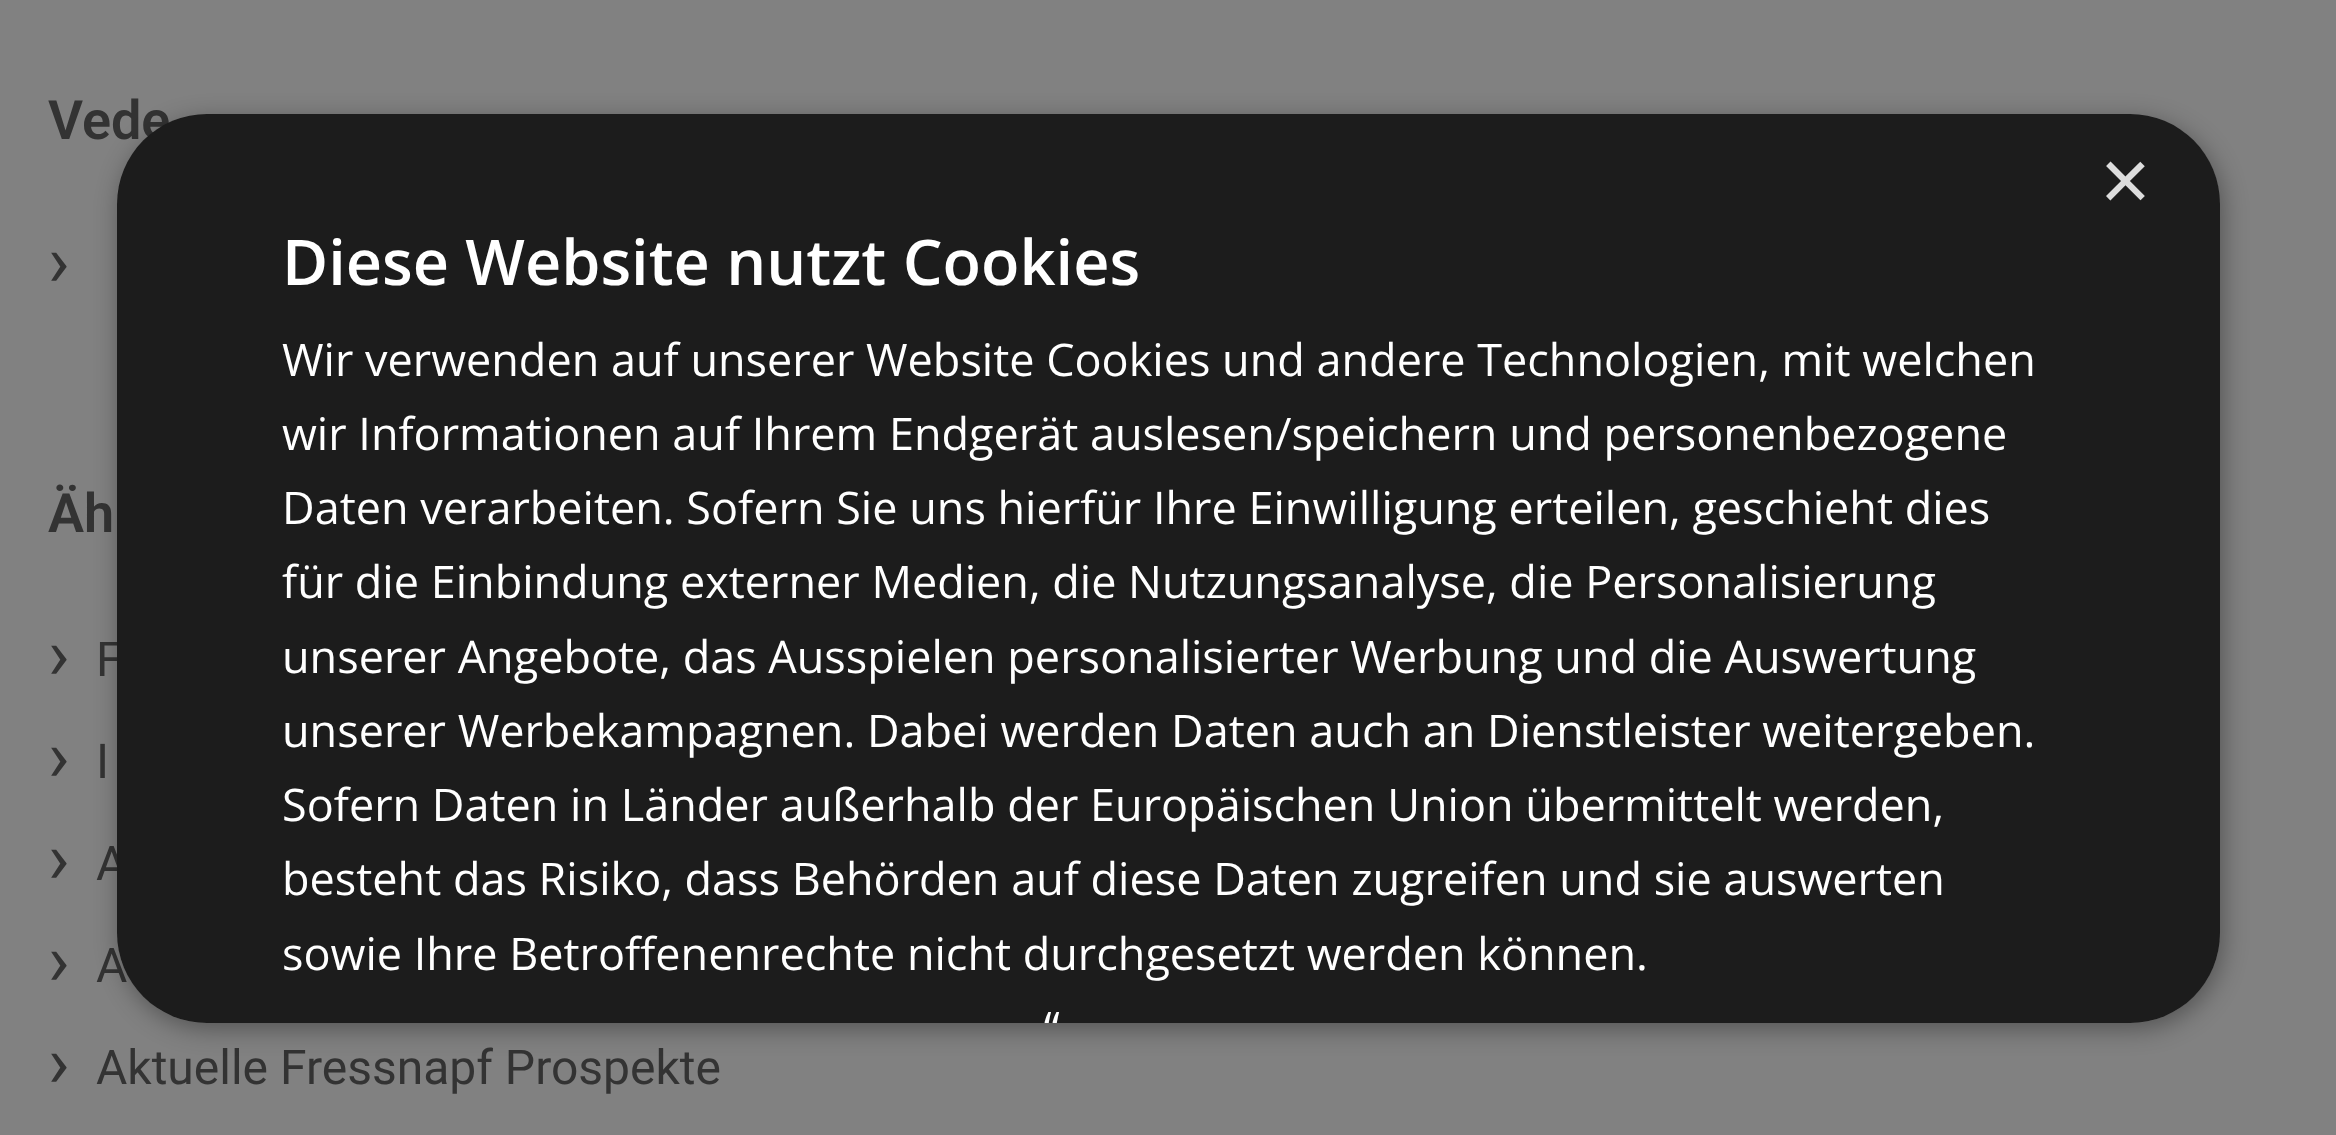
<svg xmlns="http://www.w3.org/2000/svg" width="2336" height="1135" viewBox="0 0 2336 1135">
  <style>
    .t1 { font: 600 54px Roboto; fill: #333; }
    .t2 { font: 72px Roboto; fill: #333; }
    .t3 { font: 48px Roboto; fill: #333; }
    .t4 { font: 87px Liberation Sans; fill: #ddd; }
    .t5 { font: 600 63px Open Sans; fill: #fff; }
    .t6 { font: 45px Open Sans; fill: #fff; }
  </style>
  <defs>
    <clipPath id="clip1"><path d="M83 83H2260V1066H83ZM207 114H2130C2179.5 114 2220 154.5 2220 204V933C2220 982.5 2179.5 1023 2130 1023H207C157.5 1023 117 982.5 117 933V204C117 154.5 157.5 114 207 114Z" clip-rule="evenodd"/></clipPath>
  </defs>
  <rect width="100%" height="100%" fill="#818181"/>
  <text x="48" y="139" class="t1">Vede</text>
  <text x="48" y="286" class="t2">›</text>
  <text x="48" y="532" class="t1">Äh</text>
  <text x="48" y="679" class="t2">›</text>
  <text x="96" y="676" class="t3">F</text>
  <text x="48" y="781" class="t2">›</text>
  <text x="96" y="778" class="t3">I</text>
  <text x="48" y="883" class="t2">›</text>
  <text x="96" y="880" class="t3">A</text>
  <text x="48" y="985" class="t2">›</text>
  <text x="96" y="982" class="t3">A</text>
  <text x="48" y="1087" class="t2">›</text>
  <text x="96" y="1084" class="t3">Aktuelle Fressnapf Prospekte</text>
  <g clip-path="url(#clip1)">
    <rect x="120" y="120" width="2103" height="909" rx="90" fill="#00000059" filter="blur(12px)"/>
  </g>
  <rect x="117" y="114" width="2103" height="909" rx="90" fill="#1c1c1c"/>
  <text x="2100" y="210" class="t4">×</text>
  <text x="282" y="285" class="t5">Diese Website nutzt Cookies</text>
  <text x="282" y="376" class="t6">Wir verwenden auf unserer Website Cookies und andere Technologien, mit welchen</text>
  <text x="282" y="450" class="t6">wir Informationen auf Ihrem Endgerät auslesen/speichern und personenbezogene</text>
  <text x="282" y="524" class="t6">Daten verarbeiten. Sofern Sie uns hierfür Ihre Einwilligung erteilen, geschieht dies</text>
  <text x="282" y="598" class="t6">für die Einbindung externer Medien, die Nutzungsanalyse, die Personalisierung</text>
  <text x="282" y="673" class="t6">unserer Angebote, das Ausspielen personalisierter Werbung und die Auswertung</text>
  <text x="282" y="747" class="t6">unserer Werbekampagnen. Dabei werden Daten auch an Dienstleister weitergeben.</text>
  <text x="282" y="821" class="t6">Sofern Daten in Länder außerhalb der Europäischen Union übermittelt werden,</text>
  <text x="282" y="895" class="t6">besteht das Risiko, dass Behörden auf diese Daten zugreifen und sie auswerten</text>
  <text x="282" y="970" class="t6">sowie Ihre Betroffenenrechte nicht durchgesetzt werden können.</text>
  <text x="1044" y="1044" class="t6">“</text>
</svg>
